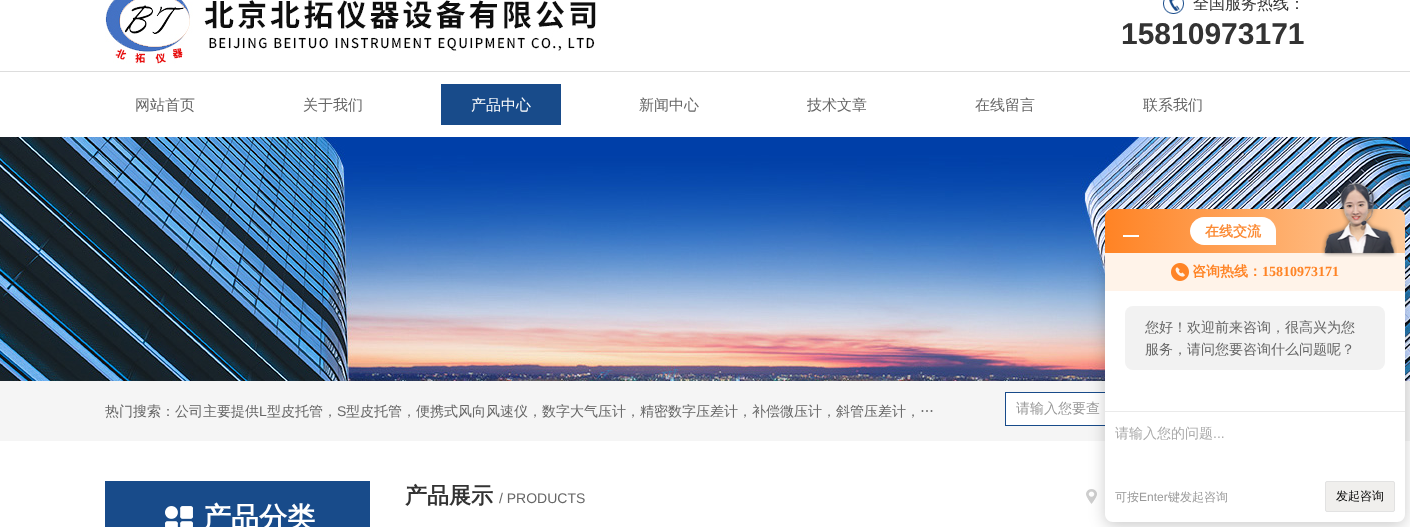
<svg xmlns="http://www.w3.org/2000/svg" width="1410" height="527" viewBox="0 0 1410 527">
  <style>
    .t1 { font: 500 16px WenQuanYi Zen Hei; fill: #333; }
    .t2 { font: bold 30px Liberation Sans; fill: #333; }
    .t3 { font: 500 15px WenQuanYi Zen Hei; fill: #666; }
    .t4 { font: 500 15px WenQuanYi Zen Hei; fill: #fff; }
    .t5 { font: 500 14px WenQuanYi Zen Hei; fill: #666; }
    .t6 { font: 14px Liberation Sans; fill: #666; }
    .t7 { font: 500 14px WenQuanYi Zen Hei; fill: #999; }
    .t8 { font: bold 14px WenQuanYi Zen Hei; fill: #fb8b36; }
    .t9 { font: bold 14px WenQuanYi Zen Hei; fill: #ff8426; }
    .t10 { font: bold 14px Liberation Serif; fill: #ff8426; }
    .t11 { font: 500 14px WenQuanYi Zen Hei; fill: #aaa; }
    .t12 { font: 14px Liberation Sans; fill: #aaa; }
    .t13 { font: 500 12px WenQuanYi Zen Hei; fill: #999; }
    .t14 { font: 12px Liberation Sans; fill: #999; }
    .t15 { font: 500 12px WenQuanYi Zen Hei; fill: #000; }
    .t16 { font: bold 22px WenQuanYi Zen Hei; fill: #333; }
    .t17 { font: bold 28px WenQuanYi Zen Hei; fill: #fff; }
  </style>
  <defs>
    <linearGradient id="g1" gradientUnits="userSpaceOnUse" x1="1105" y1="231" x2="1405" y2="231"><stop offset="0" stop-color="#ff8324"/><stop offset="1" stop-color="#fecb9c"/></linearGradient>
  </defs>
  <rect width="100%" height="100%" fill="#fff"/>
  <image x="105" y="0" width="491" height="64" href="images/1.png"/>
  <image x="1163" y="0" width="21" height="14" href="images/2.png"/>
  <text x="1193" y="9" class="t1">全国服务热线：</text>
  <text x="1121" y="44" class="t2">15810973171</text>
  <rect x="0" y="71" width="1410" height="1" fill="#ddd"/>
  <text x="135" y="110" class="t3">网站首页</text>
  <text x="303" y="110" class="t3">关于我们</text>
  <rect x="441" y="84" width="120" height="41" fill="#184b8a"/>
  <text x="471" y="110" class="t4">产品中心</text>
  <text x="639" y="110" class="t3">新闻中心</text>
  <text x="807" y="110" class="t3">技术文章</text>
  <text x="975" y="110" class="t3">在线留言</text>
  <text x="1143" y="110" class="t3">联系我们</text>
  <image x="0" y="137" width="1410" height="244" href="images/3.png"/>
  <rect x="0" y="381" width="1410" height="60" fill="#f5f5f5"/>
  <text x="105" y="416" class="t5">热门搜索：公司主要提供</text>
  <text x="259" y="416" class="t6">L</text>
  <text x="267" y="416" class="t5">型皮托管，</text>
  <text x="337" y="416" class="t6">S</text>
  <text x="346" y="416" class="t5">型皮托管，便携式风向风速仪，数字大气压计，精密数字压差计，补偿微压计，斜管压差计，…</text>
  <rect x="1006" y="393" width="99" height="32" fill="#fff"/>
  <rect x="1005" y="392" width="100" height="1" fill="#184b8a"/>
  <rect x="1005" y="425" width="100" height="1" fill="#184b8a"/>
  <rect x="1005" y="392" width="1" height="34" fill="#184b8a"/>
  <text x="1016" y="413" class="t7">请输入您要查</text>
  <image x="1086" y="489" width="11" height="15" href="images/6.png"/>
  <rect x="1105" y="257" width="300" height="269" rx="8" fill="#00000033" filter="blur(8px)"/>
  <path d="M1113 209H1397C1401.5 209 1405 212.5 1405 217V253H1105V217C1105 212.5 1108.5 209 1113 209Z" fill="url(#g1)"/>
  <rect x="1123" y="235" width="16" height="2" fill="#fff"/>
  <path d="M1204 217H1262C1269.5 217 1276 223.5 1276 231V245H1204C1196.5 245 1190 238.5 1190 231C1190 223.5 1196.5 217 1204 217Z" fill="#fff"/>
  <text x="1205" y="236" class="t8">在线交流</text>
  <path d="M1105 253H1405V514C1405 518.5 1401.5 522 1397 522H1113C1108.5 522 1105 518.5 1105 514Z" fill="#fff"/>
  <rect x="1105" y="253" width="300" height="38" fill="#fff3e9"/>
  <image x="1321" y="179" width="76" height="78" href="images/4.png"/>
  <image x="1171" y="263" width="18" height="18" href="images/5.png"/>
  <text x="1192" y="276" class="t9">咨询热线：</text>
  <text x="1262" y="276" class="t10">15810973171</text>
  <rect x="1125" y="306" width="260" height="64" rx="8" fill="#f2f2f2"/>
  <text x="1145" y="332" class="t5">您好！欢迎前来咨询，很高兴为您</text>
  <text x="1145" y="354" class="t5">服务，请问您要咨询什么问题呢？</text>
  <rect x="1105" y="411" width="300" height="1" fill="#eaeaea"/>
  <text x="1115" y="438" class="t11">请输入您的问题</text>
  <text x="1213" y="438" class="t12">...</text>
  <text x="1115" y="501" class="t13">可按</text>
  <text x="1139" y="501" class="t14">Enter</text>
  <text x="1168" y="501" class="t13">键发起咨询</text>
  <rect x="1325.5" y="481.5" width="69" height="30" rx="1.5" fill="#f0efed" stroke="#e2e2e2"/>
  <text x="1336" y="500" class="t15">发起咨询</text>
  <text x="405" y="503" class="t16">产品展示</text>
  <text x="499" y="503" class="t6">/ PRODUCTS</text>
  <rect x="105" y="481" width="265" height="46" fill="#184b8a"/>
  <image x="165" y="506" width="28" height="21" href="images/7.png"/>
  <text x="203" y="527" class="t17">产品分类</text>
</svg>
